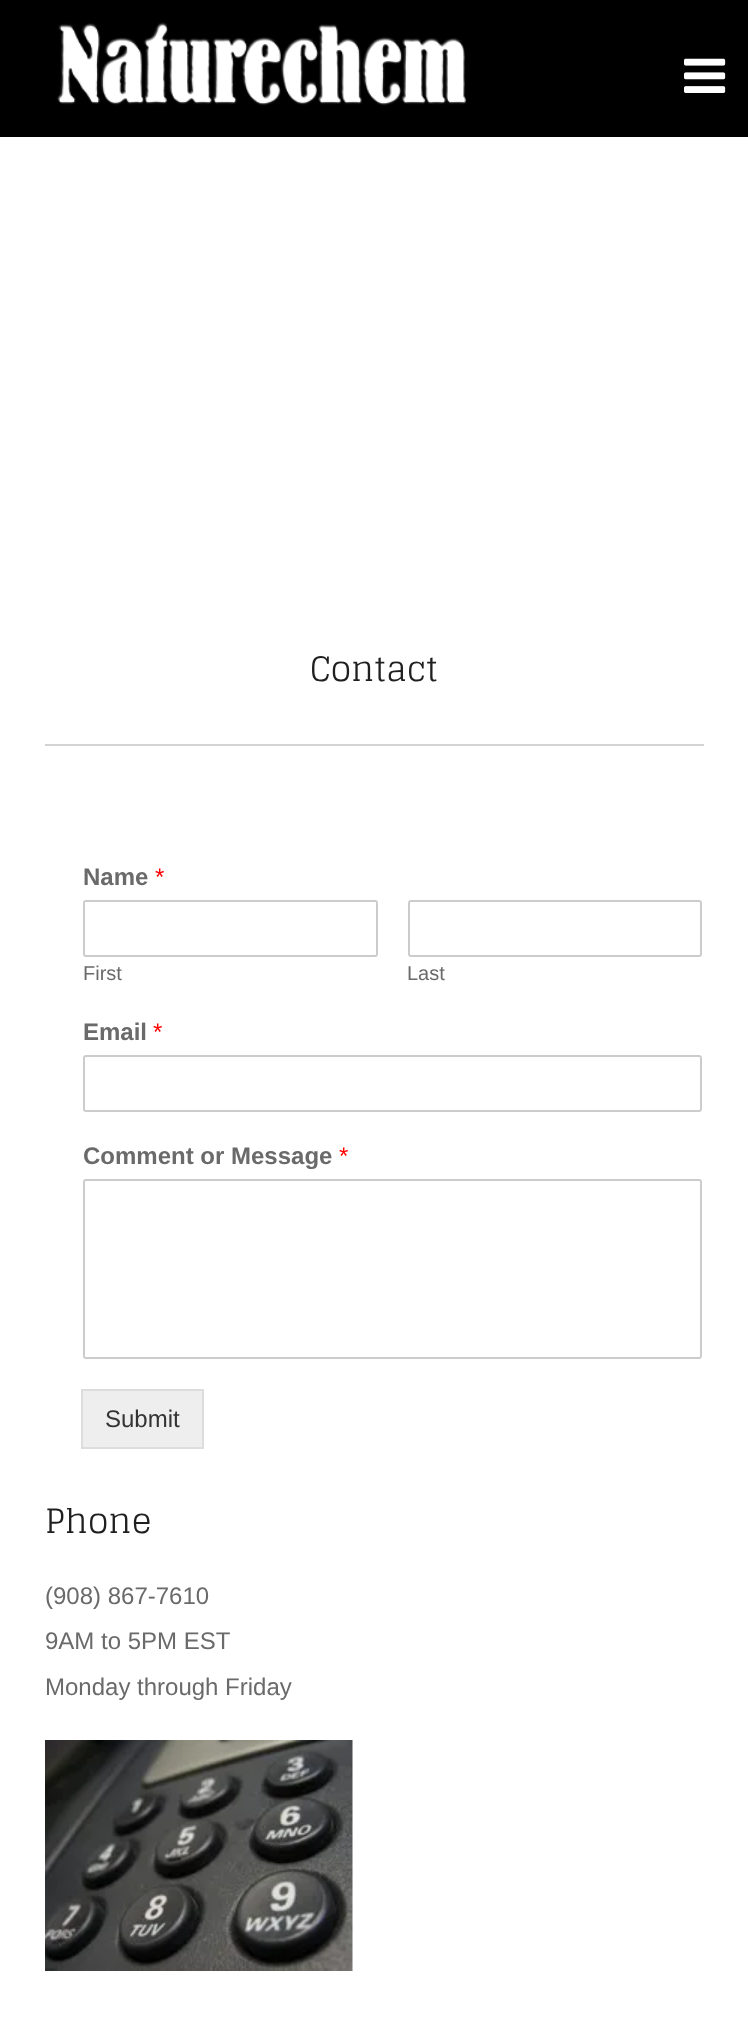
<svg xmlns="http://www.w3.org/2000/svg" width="748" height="2028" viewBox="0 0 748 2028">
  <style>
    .t1 { font: 33.5px Glegoo; fill: #1f1f1f; }
    .t2 { font: bold 24px Liberation Sans; fill: #6a6a6a; }
    .t3 { font: 24px Liberation Sans; fill: #f00; }
    .t4 { font: 20px Liberation Sans; fill: #6a6a6a; }
    .t5 { font: 24px Liberation Sans; fill: #333; }
    .t6 { font: 24px Liberation Sans; fill: #6a6a6a; }
  </style>
  <rect width="100%" height="100%" fill="#fff"/>
  <rect x="0" y="0" width="748" height="137" fill="#000"/>
  <image x="57" y="22" width="410" height="84" href="images/1.png"/>
  <image x="684" y="58" width="42" height="35" href="images/2.png"/>
  <rect x="45" y="744" width="659" height="2" fill="#d3d3d3"/>
  <text x="310" y="681" class="t1">Contact</text>
  <text x="83" y="885" class="t2">Name</text>
  <text x="155" y="885" class="t3">*</text>
  <rect x="84" y="901" width="293" height="55" rx="2" fill="none" stroke="#ccc" stroke-width="2"/>
  <text x="83" y="980" class="t4">First</text>
  <rect x="409" y="901" width="292" height="55" rx="2" fill="none" stroke="#ccc" stroke-width="2"/>
  <text x="407" y="980" class="t4">Last</text>
  <text x="83" y="1040" class="t2">Email</text>
  <text x="153" y="1040" class="t3">*</text>
  <rect x="84" y="1056" width="617" height="55" rx="2" fill="none" stroke="#ccc" stroke-width="2"/>
  <text x="83" y="1164" class="t2">Comment or Message</text>
  <text x="339" y="1164" class="t3">*</text>
  <rect x="84" y="1180" width="617" height="178" rx="2" fill="none" stroke="#ccc" stroke-width="2"/>
  <rect x="82" y="1390" width="121" height="58" fill="#eee" stroke="#ddd" stroke-width="2"/>
  <text x="105" y="1427" class="t5">Submit</text>
  <text x="45" y="1533" class="t1">Phone</text>
  <text x="45" y="1604" class="t6">(908) 867-7610</text>
  <text x="45" y="1649" class="t6">9AM to 5PM EST</text>
  <text x="45" y="1695" class="t6">Monday through Friday</text>
  <image x="45" y="1740" width="308" height="231" href="images/3.png"/>
</svg>
